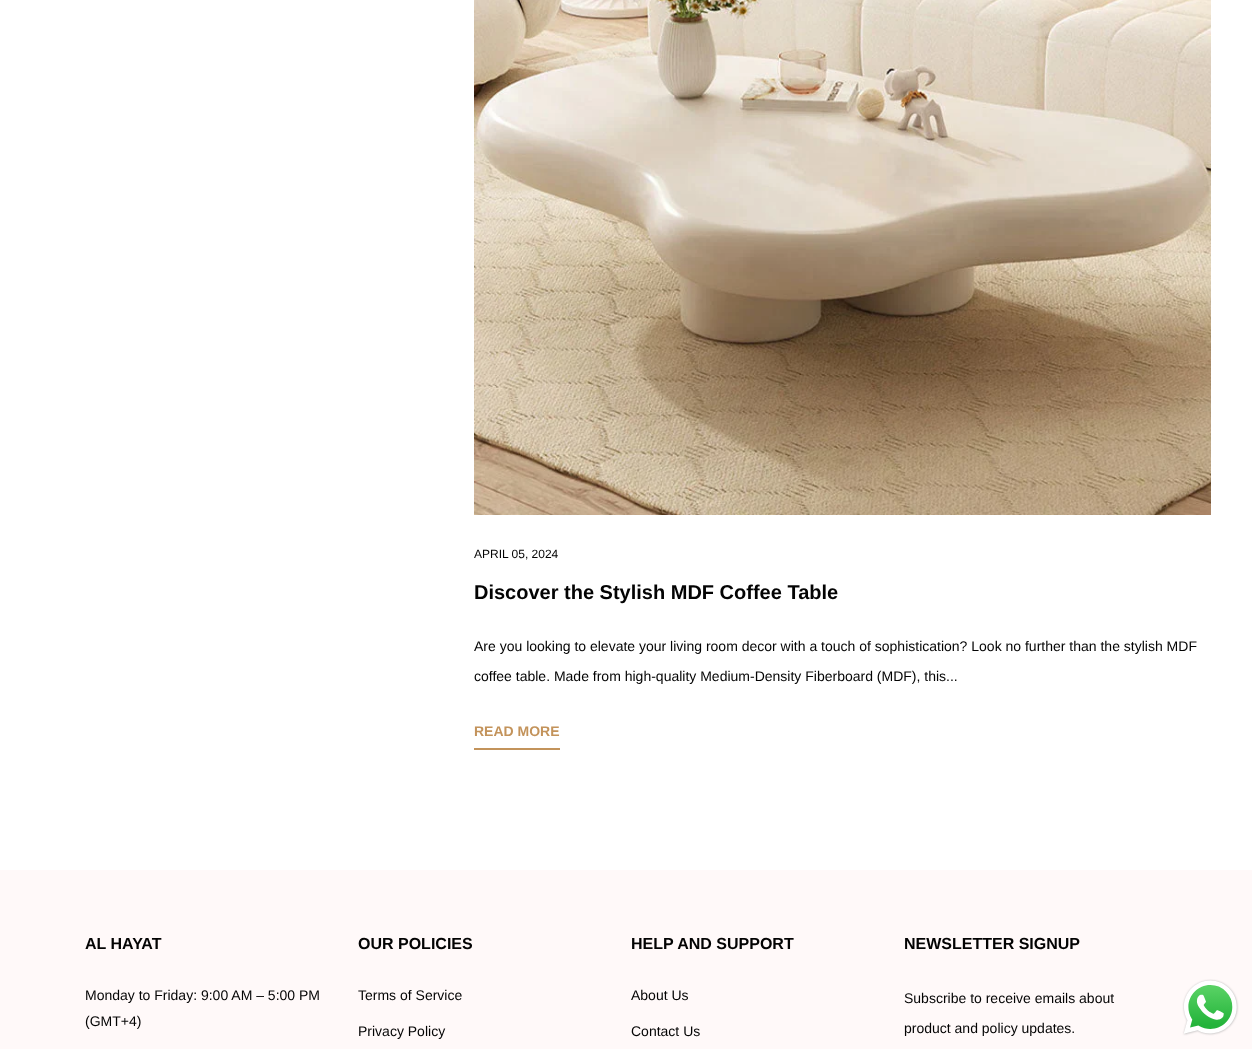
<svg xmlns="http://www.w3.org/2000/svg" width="1252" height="1049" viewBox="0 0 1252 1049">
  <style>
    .t1 { font: 12px Liberation Sans; fill: #030303; }
    .t2 { font: bold 20px Liberation Sans; fill: #030303; }
    .t3 { font: 14px Liberation Sans; fill: #030303; }
    .t4 { font: bold 14px Liberation Sans; fill: #c3935b; }
    .t5 { font: bold 16px Liberation Sans; fill: #030303; }
  </style>
  <rect width="100%" height="100%" fill="#fff"/>
  <image x="474" y="0" width="737" height="515" href="images/1.png"/>
  <text x="474" y="558" class="t1">APRIL 05, 2024</text>
  <text x="474" y="599" class="t2">Discover the Stylish MDF Coffee Table</text>
  <text x="474" y="651" class="t3">Are you looking to elevate your living room decor with a touch of sophistication? Look no further than the stylish MDF</text>
  <text x="474" y="681" class="t3">coffee table. Made from high-quality Medium-Density Fiberboard (MDF), this...</text>
  <rect x="474" y="748" width="86" height="2" fill="#c3935b"/>
  <text x="474" y="736" class="t4">READ MORE</text>
  <rect x="0" y="870" width="1252" height="179" fill="#fff9f9"/>
  <text x="85" y="949" class="t5">AL HAYAT</text>
  <text x="85" y="1000" class="t3">Monday to Friday: 9:00 AM – 5:00 PM</text>
  <text x="85" y="1026" class="t3">(GMT+4)</text>
  <text x="358" y="949" class="t5">OUR POLICIES</text>
  <text x="358" y="1000" class="t3">Terms of Service</text>
  <text x="358" y="1036" class="t3">Privacy Policy</text>
  <text x="631" y="949" class="t5">HELP AND SUPPORT</text>
  <text x="631" y="1000" class="t3">About Us</text>
  <text x="631" y="1036" class="t3">Contact Us</text>
  <text x="904" y="949" class="t5">NEWSLETTER SIGNUP</text>
  <text x="904" y="1003" class="t3">Subscribe to receive emails about</text>
  <text x="904" y="1033" class="t3">product and policy updates.</text>
  <image x="1182" y="979" width="57" height="57" href="images/2.png"/>
</svg>
